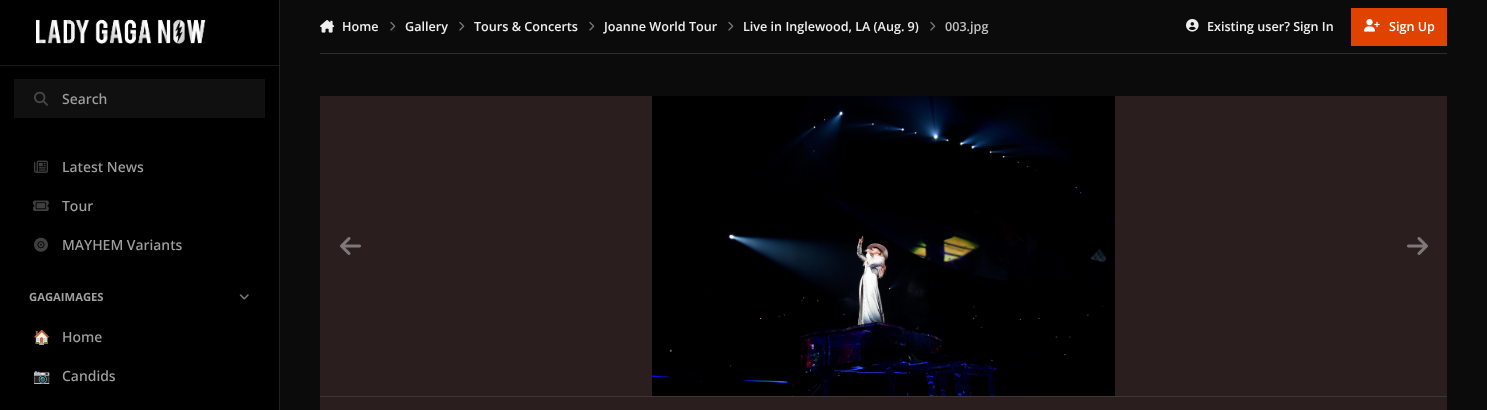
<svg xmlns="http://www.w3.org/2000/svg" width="1487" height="410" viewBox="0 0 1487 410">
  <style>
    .t1 { font: 600 12.6px Open Sans; fill: #efeeee; }
    .t2 { font: 600 12.6px Open Sans; fill: #c2c1c1; }
    .t3 { font: 600 12.6px Open Sans; fill: #fff; }
    .t4 { font: 500 14px Open Sans; fill: #a09e9e; }
    .t5 { font: bold 11.25px Open Sans; fill: #a09e9e; }
    .t6 { font: 14px Noto Color Emoji; fill: #a09e9e; }
  </style>
  <rect width="100%" height="100%" fill="#0c0b0b"/>
  <rect x="320" y="53" width="1127" height="1" fill="#2e2d2d"/>
  <image x="320" y="20" width="15" height="13" href="images/1.png"/>
  <text x="342" y="31" class="t1">Home</text>
  <image x="390" y="21" width="6" height="10" href="images/2.png"/>
  <text x="405" y="31" class="t1">Gallery</text>
  <image x="459" y="21" width="6" height="10" href="images/2.png"/>
  <text x="474" y="31" class="t1">Tours &amp; Concerts</text>
  <image x="589" y="21" width="6" height="10" href="images/2.png"/>
  <text x="604" y="31" class="t1">Joanne World Tour</text>
  <image x="728" y="21" width="6" height="10" href="images/2.png"/>
  <text x="743" y="31" class="t1">Live in Inglewood, LA (Aug. 9)</text>
  <image x="930" y="21" width="6" height="10" href="images/2.png"/>
  <text x="945" y="31" class="t2">003.jpg</text>
  <image x="1186" y="19" width="13" height="13" href="images/3.png"/>
  <text x="1207" y="31" class="t1">Existing user? Sign In</text>
  <rect x="1351" y="8" width="96" height="38" fill="#e04300"/>
  <image x="1364" y="19" width="16" height="13" href="images/4.png"/>
  <text x="1389" y="31" class="t3">Sign Up</text>
  <rect x="320" y="96" width="1127" height="300" fill="#2b1e1e"/>
  <image x="652" y="96" width="463" height="300" href="images/5.png"/>
  <image x="340" y="237" width="21" height="18" href="images/6.png"/>
  <image x="1407" y="237" width="21" height="18" href="images/7.png"/>
  <rect x="320" y="397" width="1127" height="13" fill="#2b1e1e"/>
  <rect x="320" y="396" width="1127" height="1" fill="#403535"/>
  <rect x="0" y="0" width="279" height="410" fill="#000"/>
  <rect x="279" y="0" width="1" height="410" fill="#202020"/>
  <rect x="0" y="65" width="279" height="1" fill="#181818"/>
  <image x="36" y="19" width="170" height="25" href="images/8.png"/>
  <rect x="14" y="79" width="251" height="39" fill="#101010"/>
  <image x="34" y="91" width="14" height="15" href="images/9.png"/>
  <text x="62" y="104" class="t4">Search</text>
  <image x="34" y="160" width="14" height="13" href="images/10.png"/>
  <text x="62" y="172" class="t4">Latest News</text>
  <image x="33" y="200" width="16" height="11" href="images/11.png"/>
  <text x="62" y="211" class="t4">Tour</text>
  <image x="34" y="237" width="14" height="15" href="images/12.png"/>
  <text x="62" y="250" class="t4">MAYHEM Variants</text>
  <text x="29" y="301" class="t5">GAGAIMAGES</text>
  <image x="239" y="294" width="10" height="6" href="images/13.png"/>
  <text x="33" y="342" class="t6">🏠</text>
  <text x="62" y="342" class="t4">Home</text>
  <text x="33" y="381" class="t6">📷</text>
  <text x="62" y="381" class="t4">Candids</text>
</svg>
